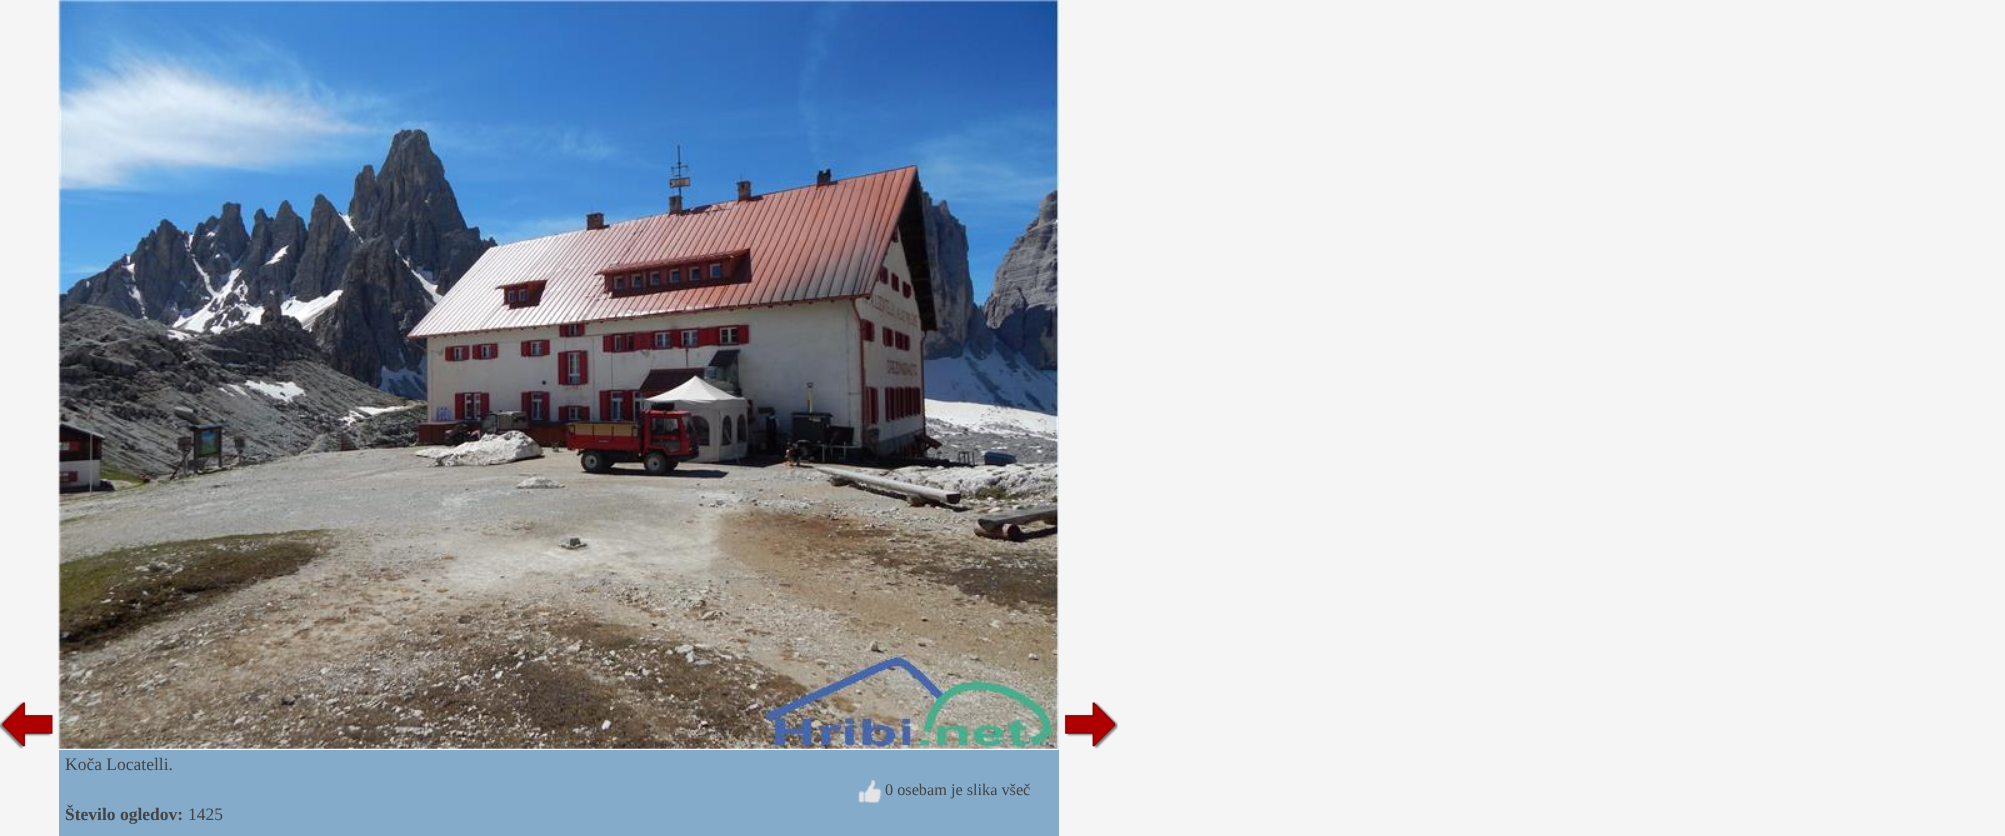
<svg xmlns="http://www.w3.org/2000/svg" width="2005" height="836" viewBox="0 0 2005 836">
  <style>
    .t1 { font: 17.5px Liberation Serif; fill: #444; }
    .t2 { font: 16.25px Liberation Serif; fill: #444; }
    .t3 { font: bold 17.5px Liberation Serif; fill: #444; }
  </style>
  <rect width="100%" height="100%" fill="#f5f5f5"/>
  <image x="0" y="702" width="53" height="47" href="images/1.png"/>
  <image x="1064" y="702" width="54" height="47" href="images/2.png"/>
  <rect x="59" y="0" width="1000" height="836" fill="#85abca"/>
  <image x="58" y="0" width="1001" height="750" href="images/3.png"/>
  <text x="65" y="770" class="t1">Koča Locatelli.</text>
  <image x="858" y="780" width="24" height="23" href="images/4.png"/>
  <text x="885" y="795" class="t2">0 osebam je slika všeč</text>
  <text x="65" y="820" class="t3">Število ogledov:</text>
  <text x="188" y="820" class="t1">1425</text>
</svg>
